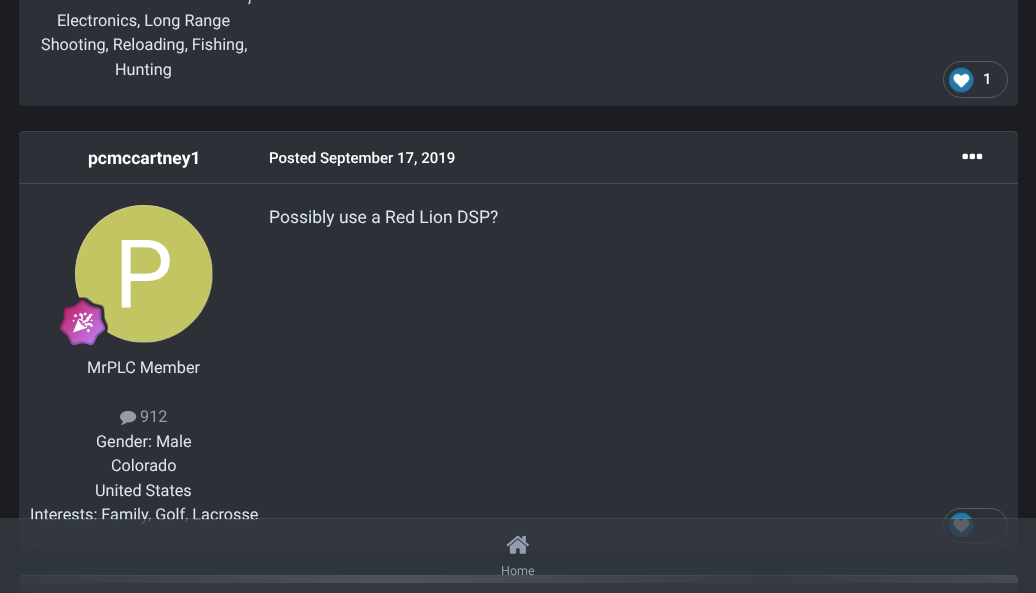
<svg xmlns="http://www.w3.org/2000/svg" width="1036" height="593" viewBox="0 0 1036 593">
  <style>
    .t1 { font: 16.25px Roboto; fill: #dae6f3; }
    .t2 { font: 500 15px Roboto; fill: #f7fafe; }
    .t3 { font: bold 17.5px Roboto; fill: #fff; }
    .t4 { font: 16.25px Roboto; fill: #939dac; }
    .t5 { font: 500 15px Roboto; fill: #fff; }
    .t6 { font: 17.5px Roboto; fill: #dae6f3; }
    .t7 { font: 12.5px Roboto; fill: #939dac; }
  </style>
  <defs>
    <clipPath id="clip1"><path d="M24 575H1013C1016 575 1018 577 1018 580V583H19V580C19 577 21 575 24 575Z"/></clipPath>
    <linearGradient id="g1" gradientUnits="userSpaceOnUse" x1="19" y1="579" x2="769" y2="579"><stop offset="0" stop-color="#444"/><stop offset="0.5" stop-color="#bbb"/><stop offset="1" stop-color="#444"/></linearGradient>
    <linearGradient id="g2" gradientUnits="userSpaceOnUse" x1="769" y1="579" x2="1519" y2="579"><stop offset="0" stop-color="#444"/><stop offset="0.5" stop-color="#bbb"/><stop offset="1" stop-color="#444"/></linearGradient>
  </defs>
  <rect width="100%" height="100%" fill="#1b1d22"/>
  <rect x="19" y="-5" width="999" height="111" rx="5" fill="#2d3037"/>
  <text x="248" y="2" class="t1">,</text>
  <text x="57" y="26" class="t1">Electronics, Long Range</text>
  <text x="41" y="50" class="t1">Shooting, Reloading, Fishing,</text>
  <text x="115" y="75" class="t1">Hunting</text>
  <rect x="943.5" y="61.5" width="64" height="36" rx="18" fill="none" stroke="#565c66"/>
  <image x="948" y="67" width="26" height="26" href="images/1.png"/>
  <text x="983" y="84" class="t2">1</text>
  <rect x="19" y="131" width="999" height="420" rx="5" fill="#2d3037"/>
  <path d="M24 132H1012C1015 132 1018 135 1018 138V136C1018 133 1016 131 1013 131H24C21 131 19 133 19 136V138C19 135 21 132 24 132Z" fill="#ffffff1a"/>
  <text x="88" y="164" class="t3">pcmccartney1</text>
  <image x="75" y="205" width="138" height="138" href="images/2.png"/>
  <circle cx="144" cy="274" r="68.5" fill="none" stroke="#dae6f34d"/>
  <image x="60" y="297" width="48" height="48" href="images/3.png"/>
  <text x="87" y="373" class="t1">MrPLC Member</text>
  <image x="120" y="410" width="17" height="15" href="images/4.png"/>
  <text x="140" y="422" class="t4">912</text>
  <text x="96" y="447" class="t1">Gender: Male</text>
  <text x="111" y="471" class="t1">Colorado</text>
  <text x="95" y="496" class="t1">United States</text>
  <text x="30" y="520" class="t1">Interests: Family, Golf, Lacrosse</text>
  <text x="269" y="163" class="t5">Posted September 17, 2019</text>
  <image x="962" y="153" width="21" height="7" href="images/5.png"/>
  <text x="269" y="223" class="t6">Possibly use a Red Lion DSP?</text>
  <rect x="19" y="576" width="999" height="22" rx="5" fill="#2d3037"/>
  <rect x="19" y="575" width="999" height="8" rx="5" fill="#2e6e83" filter="blur(15.5px)"/>
  <rect x="943.5" y="508.5" width="64" height="34" rx="17" fill="none" stroke="#565c66"/>
  <image x="948" y="512" width="26" height="26" href="images/6.png"/>
  <rect x="19" y="183" width="999" height="1" fill="#474b53"/>
  <g clip-path="url(#clip1)">
    <rect x="19" y="575" width="750" height="8" fill="url(#g1)"/>
    <rect x="769" y="575" width="249" height="8" fill="url(#g2)"/>
  </g>
  <rect x="21" y="575" width="994" height="1" fill="#ffffff40"/>
  <rect x="0" y="518" width="1036" height="1" fill="#ffffff1a"/>
  <rect x="0" y="519" width="1036" height="74" fill="#353941cc"/>
  <image x="506" y="535" width="23" height="19" href="images/7.png"/>
  <text x="501" y="575" class="t7">Home</text>
</svg>
